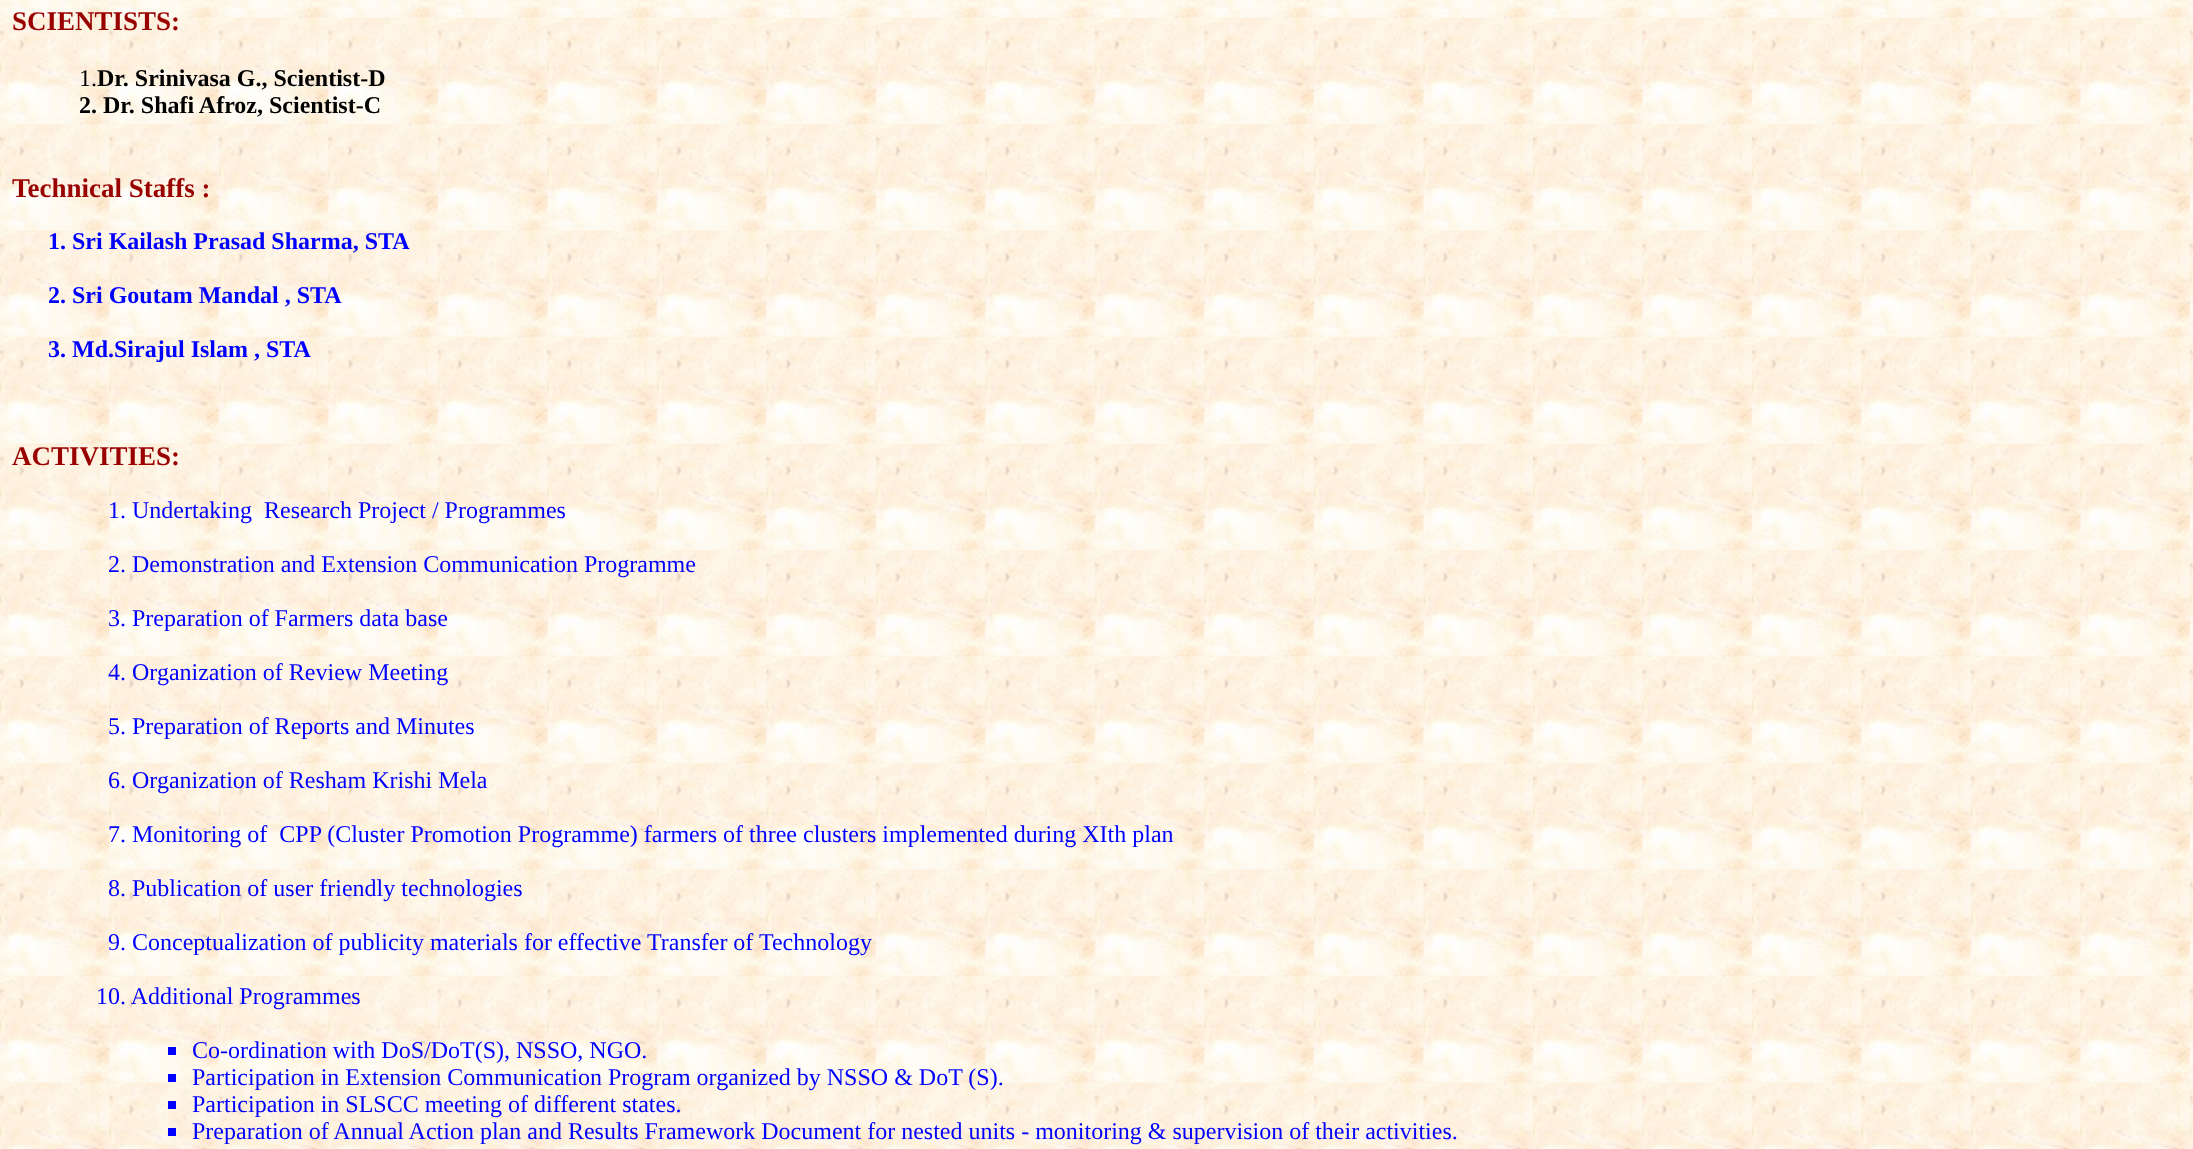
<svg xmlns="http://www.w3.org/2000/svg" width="2193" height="1149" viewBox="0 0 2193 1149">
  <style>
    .t1 { font: bold 27px Liberation Serif; fill: #900; }
    .t2 { font: 24px Liberation Serif; fill: #000; }
    .t3 { font: bold 24px Liberation Serif; fill: #000; }
    .t4 { font: bold 24px Liberation Serif; fill: #00f; }
    .t5 { font: 24px Liberation Serif; fill: #00f; }
  </style>
  <rect width="100%" height="100%" fill="#fff"/>
  <image x="0" y="0" width="2193" height="1149" href="images/1.png"/>
  <text x="12" y="30" class="t1">SCIENTISTS:</text>
  <text x="79" y="86" class="t2">1.</text>
  <text x="97" y="86" class="t3">Dr. Srinivasa G., Scientist-D</text>
  <text x="79" y="113" class="t3">2. Dr. Shafi Afroz, Scientist-C</text>
  <text x="12" y="197" class="t1">Technical Staffs :</text>
  <text x="48" y="249" class="t4">1. Sri Kailash Prasad Sharma, STA</text>
  <text x="48" y="303" class="t4">2. Sri Goutam Mandal , STA</text>
  <text x="48" y="357" class="t4">3. Md.Sirajul Islam , STA</text>
  <text x="12" y="465" class="t1">ACTIVITIES:</text>
  <text x="108" y="518" class="t5" xml:space="preserve">1. Undertaking  Research Project / Programmes</text>
  <text x="108" y="572" class="t5">2. Demonstration and Extension Communication Programme</text>
  <text x="108" y="626" class="t5">3. Preparation of Farmers data base</text>
  <text x="108" y="680" class="t5">4. Organization of Review Meeting</text>
  <text x="108" y="734" class="t5">5. Preparation of Reports and Minutes</text>
  <text x="108" y="788" class="t5">6. Organization of Resham Krishi Mela</text>
  <text x="108" y="842" class="t5" xml:space="preserve">7. Monitoring of  CPP (Cluster Promotion Programme) farmers of three clusters implemented during XIth plan</text>
  <text x="108" y="896" class="t5">8. Publication of user friendly technologies</text>
  <text x="108" y="950" class="t5">9. Conceptualization of publicity materials for effective Transfer of Technology</text>
  <text x="96" y="1004" class="t5">10. Additional Programmes</text>
  <rect x="168" y="1047" width="8" height="8" fill="#00f"/>
  <text x="192" y="1058" class="t5">Co-ordination with DoS/DoT(S), NSSO, NGO.</text>
  <rect x="168" y="1074" width="8" height="8" fill="#00f"/>
  <text x="192" y="1085" class="t5">Participation in Extension Communication Program organized by NSSO &amp; DoT (S).</text>
  <rect x="168" y="1101" width="8" height="8" fill="#00f"/>
  <text x="192" y="1112" class="t5">Participation in SLSCC meeting of different states.</text>
  <rect x="168" y="1128" width="8" height="8" fill="#00f"/>
  <text x="192" y="1139" class="t5">Preparation of Annual Action plan and Results Framework Document for nested units - monitoring &amp; supervision of their activities.</text>
</svg>
